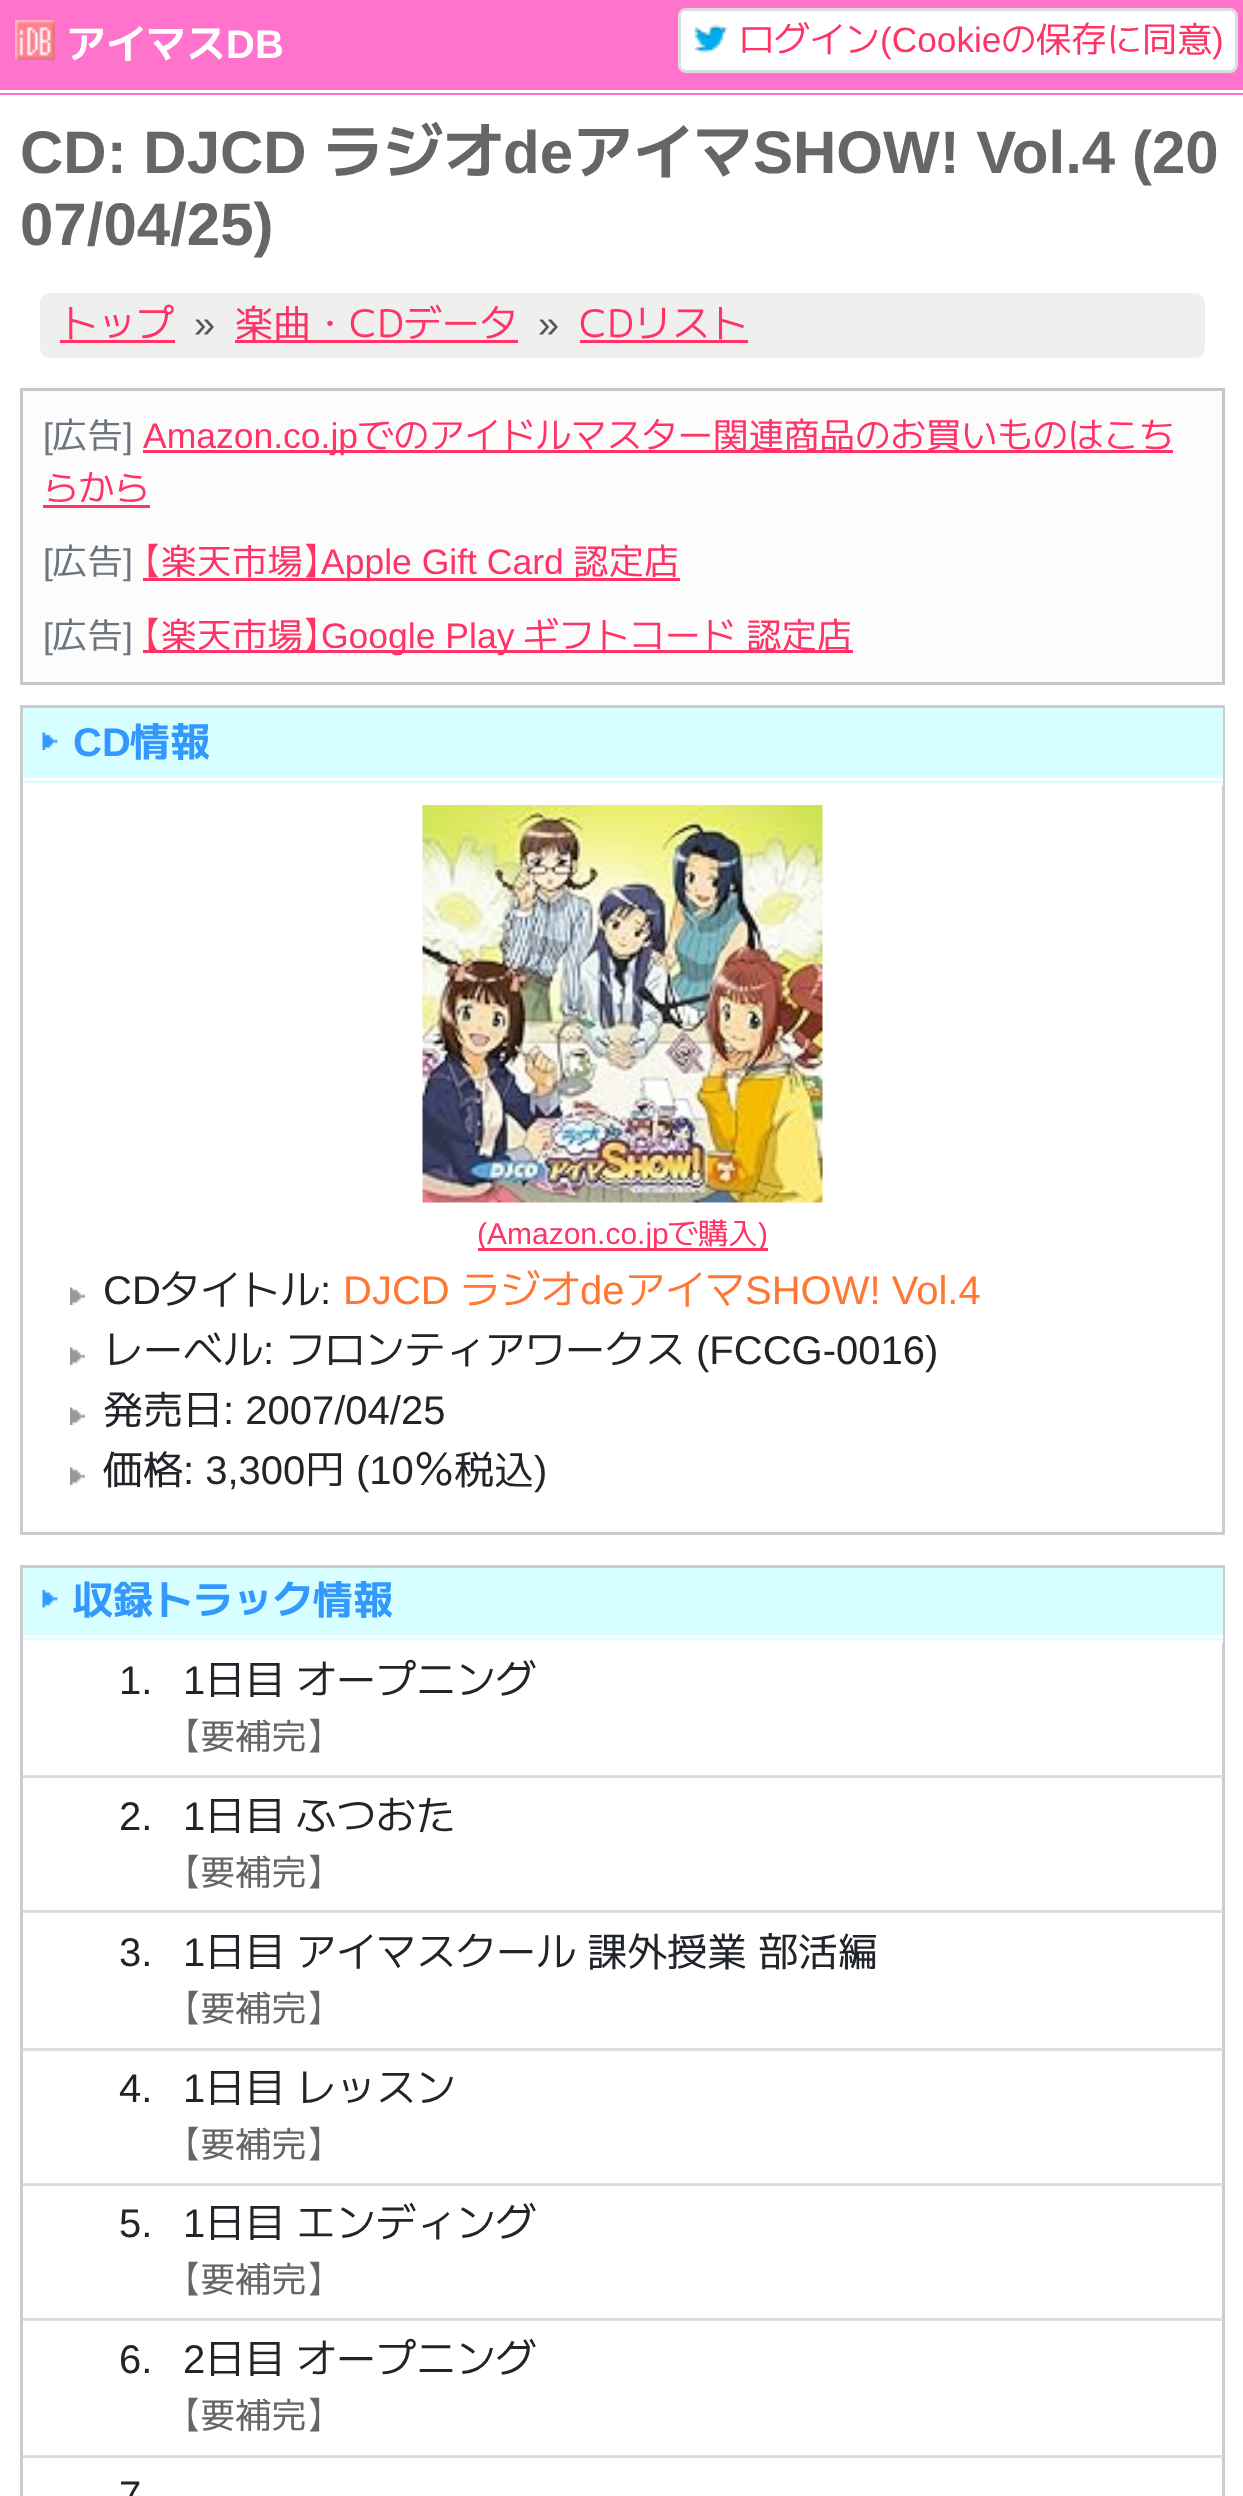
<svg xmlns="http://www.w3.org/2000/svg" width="1243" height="2496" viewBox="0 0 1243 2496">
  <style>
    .t1 { font: bold 40px 'M PLUS 2'; fill: #fff; }
    .t2 { font: bold 40px Liberation Sans; fill: #fff; }
    .t3 { font: 35.25px 'M PLUS 2'; fill: #f36; }
    .t4 { font: 35.25px Liberation Sans; fill: #f36; }
    .t5 { font: bold 60px Liberation Sans; fill: #666; }
    .t6 { font: bold 60px 'M PLUS 2'; fill: #666; }
    .t7 { font: 38px 'M PLUS 2'; fill: #f36; }
    .t8 { font: 38px Liberation Sans; fill: #55585b; }
    .t9 { font: 35.5px Liberation Sans; fill: #6c757d; }
    .t10 { font: 35.5px 'M PLUS 2'; fill: #6c757d; }
    .t11 { font: 35.5px Liberation Sans; fill: #f36; }
    .t12 { font: 35.5px 'M PLUS 2'; fill: #f36; }
    .t13 { font: 35.5px BIZ UDPGothic; fill: #f36; }
    .t14 { font: bold 40px Liberation Sans; fill: #39f; }
    .t15 { font: bold 40px 'M PLUS 2'; fill: #39f; }
    .t16 { font: 30px Liberation Sans; fill: #f36; }
    .t17 { font: 30px 'M PLUS 2'; fill: #f36; }
    .t18 { font: 40px Liberation Sans; fill: #212529; }
    .t19 { font: 40px 'M PLUS 2'; fill: #212529; }
    .t20 { font: 40px Liberation Sans; fill: #f73; }
    .t21 { font: 40px 'M PLUS 2'; fill: #f73; }
    .t22 { font: 40px BIZ UDPGothic; fill: #212529; }
    .t23 { font: 35.5px BIZ UDPGothic; fill: #666; }
    .t24 { font: 35.5px 'M PLUS 2'; fill: #666; }
  </style>
  <rect width="100%" height="100%" fill="#fff"/>
  <rect x="0" y="0" width="1243" height="95" fill="#ff73cc"/>
  <rect x="0" y="90" width="1243" height="3" fill="#fff"/>
  <image x="15" y="20" width="40" height="40" href="images/1.png"/>
  <text x="66" y="58" class="t1">アイマス</text>
  <text x="226" y="58" class="t2">DB</text>
  <rect x="679.5" y="9.5" width="557" height="62" rx="6.5" fill="#fff" stroke="#ddd" stroke-width="3"/>
  <image x="694" y="24" width="35" height="30" href="images/2.png"/>
  <text x="739" y="52" class="t3">ログイン</text>
  <text x="880" y="52" class="t4">(Cookie</text>
  <text x="1001" y="52" class="t3">の保存に同意</text>
  <text x="1212" y="52" class="t4">)</text>
  <text x="20" y="173" class="t5">CD: DJCD</text>
  <text x="323" y="173" class="t6">ラジオ</text>
  <text x="503" y="173" class="t5">de</text>
  <text x="573" y="173" class="t6">アイマ</text>
  <text x="753" y="173" class="t5">SHOW! Vol.4 (20</text>
  <text x="20" y="245" class="t5">07/04/25)</text>
  <rect x="40" y="293" width="1165" height="65" rx="10" fill="#efefef"/>
  <text x="60" y="337" class="t7">トップ</text>
  <rect x="60" y="340" width="115" height="3" fill="#f36"/>
  <text x="194" y="337" class="t8">»</text>
  <rect x="235" y="340" width="283" height="3" fill="#f36"/>
  <text x="235" y="337" class="t7">楽曲・CDデータ</text>
  <text x="538" y="337" class="t8">»</text>
  <text x="579" y="337" class="t7">CDリスト</text>
  <rect x="580" y="340" width="168" height="3" fill="#f36"/>
  <rect x="21.5" y="389.5" width="1202" height="294" fill="#fcfcfd" stroke="#c4c8cb" stroke-width="3"/>
  <text x="43" y="448" class="t9">[</text>
  <text x="52" y="448" class="t10">広告</text>
  <text x="123" y="448" class="t9">]</text>
  <rect x="143" y="450" width="1030" height="3" fill="#f36"/>
  <text x="143" y="448" class="t11">Amazon.co.jp</text>
  <text x="358" y="448" class="t12">でのアイドルマスター関連商品のお買いものはこち</text>
  <text x="43" y="501" class="t12">らから</text>
  <rect x="43" y="505" width="107" height="3" fill="#f36"/>
  <text x="43" y="574" class="t9">[</text>
  <text x="52" y="574" class="t10">広告</text>
  <text x="123" y="574" class="t9">]</text>
  <text x="143" y="574" class="t13">【</text>
  <text x="161" y="574" class="t12">楽天市場</text>
  <text x="303" y="574" class="t13">】</text>
  <rect x="143" y="578" width="537" height="3" fill="#f36"/>
  <text x="321" y="574" class="t11">Apple Gift Card</text>
  <text x="573" y="574" class="t12">認定店</text>
  <text x="43" y="648" class="t9">[</text>
  <text x="52" y="648" class="t10">広告</text>
  <text x="123" y="648" class="t9">]</text>
  <rect x="143" y="650" width="710" height="3" fill="#f36"/>
  <text x="143" y="648" class="t13">【</text>
  <text x="161" y="648" class="t12">楽天市場</text>
  <text x="303" y="648" class="t13">】</text>
  <text x="321" y="648" class="t11">Google Play</text>
  <text x="523" y="648" class="t12">ギフトコード</text>
  <text x="746" y="648" class="t12">認定店</text>
  <rect x="21.5" y="706.5" width="1202" height="827" fill="none" stroke="#ccc" stroke-width="3"/>
  <rect x="23" y="708" width="1200" height="75" fill="#d7ffff"/>
  <image x="42" y="732" width="16" height="18" href="images/3.png"/>
  <rect x="23" y="778" width="1200" height="3" fill="#fff"/>
  <rect x="1222" y="783" width="1" height="3" fill="#fff"/>
  <text x="73" y="756" class="t14">CD</text>
  <text x="130" y="756" class="t15">情報</text>
  <image x="422" y="805" width="401" height="398" href="images/4.png"/>
  <rect x="478" y="1248" width="290" height="3" fill="#f36"/>
  <text x="477" y="1244" class="t16">(Amazon.co.jp</text>
  <text x="668" y="1244" class="t17">で購入</text>
  <text x="758" y="1244" class="t16">)</text>
  <image x="70" y="1287" width="15" height="18" href="images/5.png"/>
  <text x="103" y="1304" class="t18">CD</text>
  <text x="160" y="1304" class="t19">タイトル</text>
  <text x="320" y="1304" class="t18">:</text>
  <text x="343" y="1304" class="t20">DJCD</text>
  <text x="460" y="1304" class="t21">ラジオ</text>
  <text x="580" y="1304" class="t20">de</text>
  <text x="625" y="1304" class="t21">アイマ</text>
  <text x="745" y="1304" class="t20">SHOW! Vol.4</text>
  <image x="70" y="1347" width="15" height="18" href="images/5.png"/>
  <text x="103" y="1364" class="t19">レーベル</text>
  <text x="263" y="1364" class="t18">:</text>
  <text x="285" y="1364" class="t19">フロンティアワークス</text>
  <text x="696" y="1364" class="t18">(FCCG-0016)</text>
  <image x="70" y="1407" width="15" height="18" href="images/5.png"/>
  <text x="103" y="1424" class="t19">発売日</text>
  <text x="223" y="1424" class="t18">: 2007/04/25</text>
  <image x="70" y="1467" width="15" height="18" href="images/5.png"/>
  <text x="103" y="1484" class="t19">価格</text>
  <text x="183" y="1484" class="t18">: 3,300</text>
  <text x="305" y="1484" class="t19">円</text>
  <text x="356" y="1484" class="t18">(10</text>
  <text x="414" y="1484" class="t22">％</text>
  <text x="454" y="1484" class="t19">税込</text>
  <text x="534" y="1484" class="t18">)</text>
  <rect x="21.5" y="1566.5" width="1202" height="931" fill="none" stroke="#ccc" stroke-width="3"/>
  <rect x="23" y="1568" width="1200" height="72" fill="#d7ffff"/>
  <image x="42" y="1590" width="16" height="18" href="images/6.png"/>
  <rect x="23" y="1635" width="1200" height="3" fill="#fff"/>
  <rect x="1222" y="1640" width="1" height="3" fill="#fff"/>
  <text x="73" y="1614" class="t15">収録トラック情報</text>
  <rect x="23" y="1775" width="1200" height="3" fill="#ddd"/>
  <text x="119" y="1694" class="t18">1.</text>
  <text x="183" y="1694" class="t18">1</text>
  <text x="205" y="1694" word-spacing="-0.5" class="t19">日目 オープニング</text>
  <text x="183" y="1749" class="t23">【</text>
  <text x="200" y="1749" class="t24">要補完</text>
  <text x="307" y="1749" class="t23">】</text>
  <rect x="23" y="1910" width="1200" height="3" fill="#ddd"/>
  <text x="119" y="1830" class="t18">2.</text>
  <text x="183" y="1830" class="t18">1</text>
  <text x="205" y="1830" word-spacing="-0.5" class="t19">日目 ふつおた</text>
  <text x="183" y="1885" class="t23">【</text>
  <text x="200" y="1885" class="t24">要補完</text>
  <text x="307" y="1885" class="t23">】</text>
  <rect x="23" y="2048" width="1200" height="3" fill="#ddd"/>
  <text x="119" y="1966" class="t18">3.</text>
  <text x="183" y="1966" class="t18">1</text>
  <text x="205" y="1966" word-spacing="-0.5" class="t19">日目 アイマスクール 課外授業 部活編</text>
  <text x="183" y="2021" class="t23">【</text>
  <text x="200" y="2021" class="t24">要補完</text>
  <text x="307" y="2021" class="t23">】</text>
  <rect x="23" y="2183" width="1200" height="3" fill="#ddd"/>
  <text x="119" y="2102" class="t18">4.</text>
  <text x="183" y="2102" class="t18">1</text>
  <text x="205" y="2102" word-spacing="-0.5" class="t19">日目 レッスン</text>
  <text x="183" y="2157" class="t23">【</text>
  <text x="200" y="2157" class="t24">要補完</text>
  <text x="307" y="2157" class="t23">】</text>
  <rect x="23" y="2318" width="1200" height="3" fill="#ddd"/>
  <text x="119" y="2237" class="t18">5.</text>
  <text x="183" y="2237" class="t18">1</text>
  <text x="205" y="2237" word-spacing="-0.5" class="t19">日目 エンディング</text>
  <text x="183" y="2292" class="t23">【</text>
  <text x="200" y="2292" class="t24">要補完</text>
  <text x="307" y="2292" class="t23">】</text>
  <rect x="23" y="2455" width="1200" height="3" fill="#ddd"/>
  <text x="119" y="2373" class="t18">6.</text>
  <text x="183" y="2373" class="t18">2</text>
  <text x="205" y="2373" word-spacing="-0.5" class="t19">日目 オープニング</text>
  <text x="183" y="2428" class="t23">【</text>
  <text x="200" y="2428" class="t24">要補完</text>
  <text x="307" y="2428" class="t23">】</text>
  <text x="119" y="2509" class="t18">7</text>
</svg>
